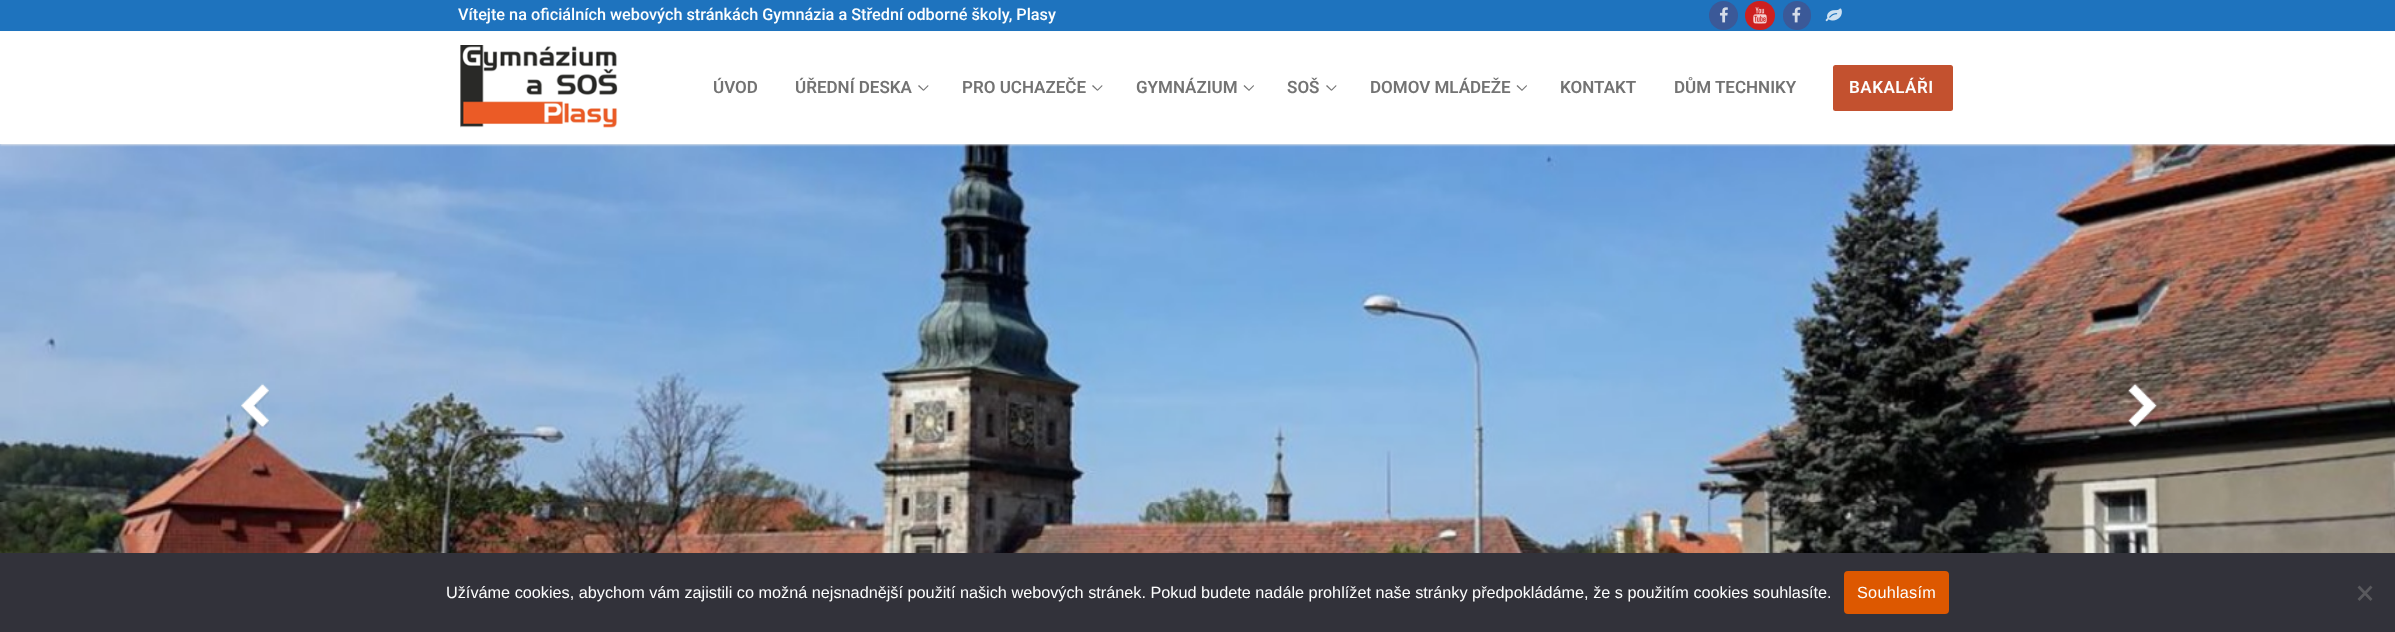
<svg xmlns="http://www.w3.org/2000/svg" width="2395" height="632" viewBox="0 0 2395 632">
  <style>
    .t1 { font: 500 16.25px Roboto; fill: #fdfefe; }
    .t2 { font: 600 17px Roboto; fill: #737373; }
    .t3 { font: 600 17px Roboto; letter-spacing: 0.5px; fill: #fdfefe; }
    .t4 { font: 16.25px Liberation Sans; fill: #fdfefe; }
    .t5 { font: 16.25px Liberation Sans; letter-spacing: 0.25px; fill: #fdfefe; }
  </style>
  <rect width="100%" height="100%" fill="#fff"/>
  <rect x="0" y="0" width="2395" height="31" fill="#1e73be"/>
  <text x="458" y="20" class="t1">Vítejte na oficiálních webových stránkách Gymnázia a Střední odborné školy, Plasy</text>
  <image x="0" y="144" width="2395" height="409" href="images/6.png"/>
  <rect x="0" y="33" width="2395" height="112" fill="#e1e5ea" filter="blur(1px)"/>
  <circle cx="1723.5" cy="15.5" r="14.5" fill="#3b5998"/>
  <image x="1719" y="7" width="9" height="16" href="images/1.png"/>
  <rect x="1745" y="1" width="30" height="29" rx="14.5" fill="#cd201f"/>
  <image x="1753" y="7" width="14" height="17" href="images/2.png"/>
  <rect x="1783" y="1" width="28" height="29" rx="14" fill="#3b5998"/>
  <image x="1792" y="7" width="9" height="16" href="images/3.png"/>
  <image x="1825" y="8" width="17" height="14" href="images/4.png"/>
  <rect x="0" y="32" width="2395" height="112" fill="#fff"/>
  <image x="460" y="45" width="158" height="83" href="images/5.png"/>
  <text x="713" y="93" class="t2">ÚVOD</text>
  <text x="795" y="93" class="t2">ÚŘEDNÍ DESKA</text>
  <path d="M923.5 91L918 86L919 85L923.5 89.5Z" fill="#737373"/>
  <path d="M928.5 86L923.5 91V89.5L928 85Z" fill="#737373"/>
  <text x="962" y="93" class="t2">PRO UCHAZEČE</text>
  <path d="M1097.5 91L1092 86L1093 85L1097.5 89.5Z" fill="#737373"/>
  <path d="M1102.5 86L1097.5 91V89.5L1102 85Z" fill="#737373"/>
  <text x="1136" y="93" class="t2">GYMNÁZIUM</text>
  <path d="M1249 91L1243.5 86L1244.5 85L1249 89.5ZM1254 86L1249 91V89.5L1253.5 85Z" fill="#737373"/>
  <text x="1287" y="93" class="t2">SOŠ</text>
  <path d="M1331.5 91L1326 86L1327 85L1331.5 89.5Z" fill="#737373"/>
  <path d="M1336.5 86L1331.5 91V89.5L1336 85Z" fill="#737373"/>
  <text x="1370" y="93" class="t2">DOMOV MLÁDEŽE</text>
  <path d="M1522 91L1516.5 86L1517.5 85L1522 89.5ZM1527 86L1522 91V89.5L1526.5 85Z" fill="#737373"/>
  <text x="1560" y="93" class="t2">KONTAKT</text>
  <text x="1674" y="93" class="t2">DŮM TECHNIKY</text>
  <rect x="1833" y="65" width="120" height="46" rx="2.5" fill="#c3512f"/>
  <text x="1849" y="93" class="t3">BAKALÁŘI</text>
  <image x="241" y="383" width="28" height="45" href="images/7.png"/>
  <image x="2128" y="383" width="29" height="45" href="images/8.png"/>
  <rect x="0" y="553" width="2395" height="79" fill="#32323a"/>
  <text x="446" y="598" class="t4">Užíváme cookies, abychom vám zajistili co možná nejsnadnější použití našich webových stránek. Pokud budete nadále prohlížet naše stránky předpokládáme, že s použitím cookies souhlasíte.</text>
  <rect x="1844" y="571" width="105" height="43" rx="4" fill="#dd5800"/>
  <text x="1857" y="598" class="t5">Souhlasím</text>
  <path d="M2370.5 585.5L2372.5 587.5L2359.5 601L2357.5 599Z" fill="#59595d"/>
  <path d="M2357.5 587.5L2359.5 585.5L2372.5 599L2370.5 601Z" fill="#59595d"/>
</svg>
